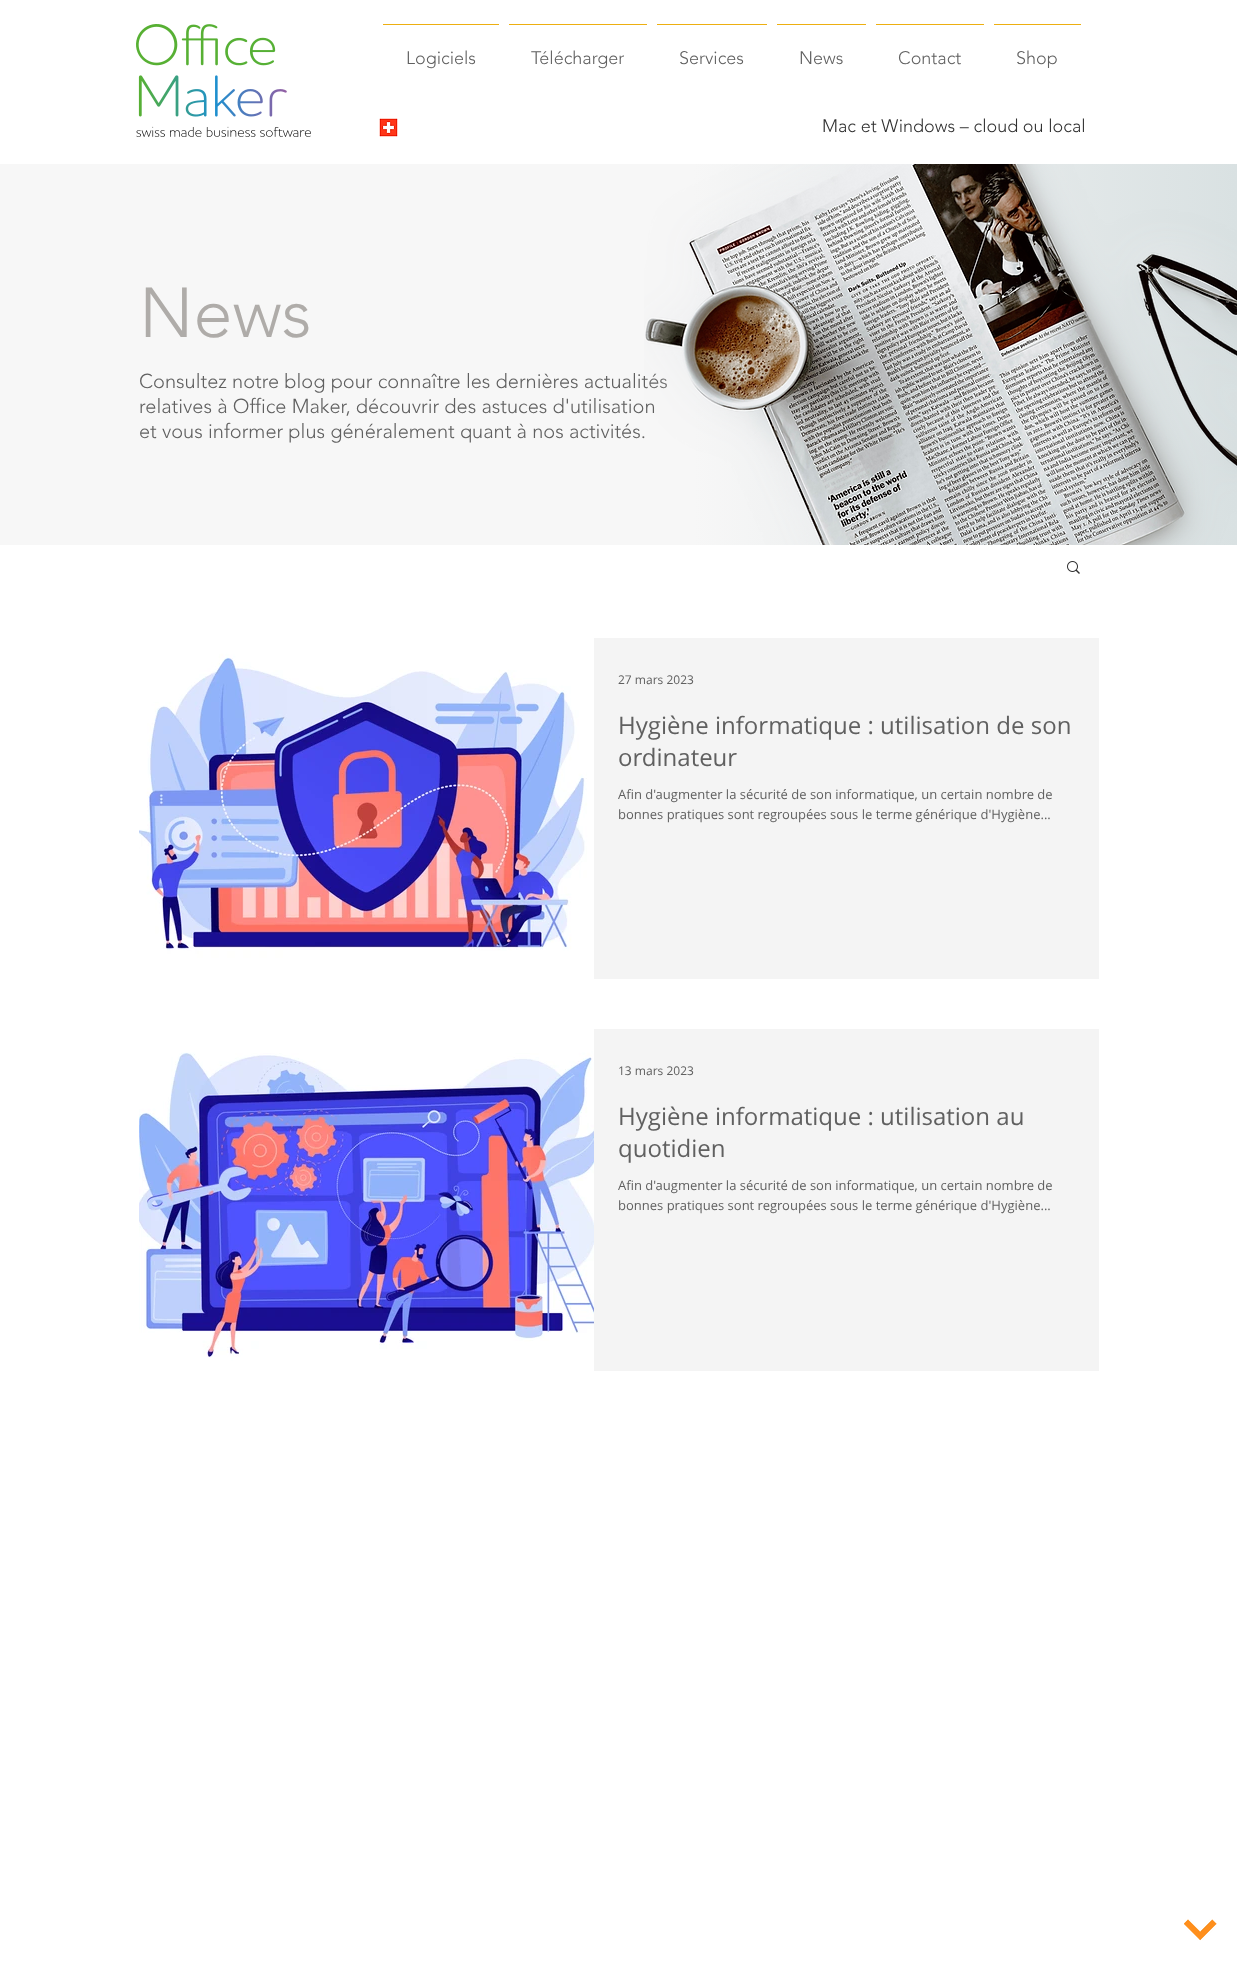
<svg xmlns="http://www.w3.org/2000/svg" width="1237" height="1965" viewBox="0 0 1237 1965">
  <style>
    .t1 { font: 300 18px 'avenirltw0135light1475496'; fill: #606060; }
    .t2 { font: 300 18px 'avenirltw0135light1475496'; fill: #303030; }
    .t3 { font: 300 70px 'avenirltw0135light1475496'; fill: #afaca9; }
    .t4 { font: 300 20px 'avenirltw0135light1475496'; fill: #606060; }
    .t5 { font: 12px Open Sans; fill: #606060; }
    .t6 { font: 24px Open Sans; fill: #606060; }
    .t7 { font: 13px Open Sans; fill: #606060; }
  </style>
  <defs>
    <linearGradient id="g1" gradientUnits="userSpaceOnUse" x1="0" y1="355" x2="1237" y2="354"><stop offset="0.56" stop-color="#f7f7f7"/><stop offset="1" stop-color="#d9e1e2"/></linearGradient>
  </defs>
  <rect width="100%" height="100%" fill="#fff"/>
  <image x="136" y="24" width="175" height="113" href="images/1.png"/>
  <rect x="383" y="24" width="116" height="1" fill="#edaf11"/>
  <text x="406" y="64" class="t1">Logiciels</text>
  <rect x="509" y="24" width="138" height="1" fill="#edaf11"/>
  <text x="531" y="64" class="t1">Télécharger</text>
  <rect x="657" y="24" width="110" height="1" fill="#edaf11"/>
  <text x="679" y="64" class="t1">Services</text>
  <rect x="777" y="24" width="89" height="1" fill="#edaf11"/>
  <text x="799" y="64" class="t1">News</text>
  <rect x="876" y="24" width="108" height="1" fill="#edaf11"/>
  <text x="898" y="64" class="t1">Contact</text>
  <rect x="994" y="24" width="87" height="1" fill="#edaf11"/>
  <text x="1016" y="64" class="t1">Shop</text>
  <image x="379" y="118" width="19" height="19" href="images/2.png"/>
  <text x="822" y="132" class="t2">Mac et Windows – cloud ou local</text>
  <rect x="0" y="164" width="1237" height="381" fill="url(#g1)"/>
  <text x="139" y="337" class="t3">News</text>
  <text x="139" y="388" class="t4">Consultez notre blog pour connaître les dernières actualités</text>
  <text x="139" y="413" class="t4">relatives à Office Maker, découvrir des astuces d'utilisation</text>
  <image x="644" y="164" width="593" height="381" href="images/3.png"/>
  <text x="139" y="438" class="t4">et vous informer plus généralement quant à nos activités.</text>
  <image x="1067" y="561" width="13" height="13" href="images/4.png"/>
  <image x="139" y="638" width="455" height="341" href="images/5.png"/>
  <rect x="594" y="638" width="505" height="341" fill="#f4f4f4"/>
  <text x="618" y="684" class="t5">27 mars 2023</text>
  <text x="618" y="734" class="t6">Hygiène informatique : utilisation de son</text>
  <text x="618" y="766" class="t6">ordinateur</text>
  <text x="618" y="799" class="t7">Afin d'augmenter la sécurité de son informatique, un certain nombre de</text>
  <text x="618" y="819" class="t7">bonnes pratiques sont regroupées sous le terme générique d'Hygiène...</text>
  <image x="139" y="1029" width="455" height="342" href="images/6.png"/>
  <rect x="594" y="1029" width="505" height="342" fill="#f4f4f4"/>
  <text x="618" y="1075" class="t5">13 mars 2023</text>
  <text x="618" y="1125" class="t6">Hygiène informatique : utilisation au</text>
  <text x="618" y="1157" class="t6">quotidien</text>
  <text x="618" y="1190" class="t7">Afin d'augmenter la sécurité de son informatique, un certain nombre de</text>
  <text x="618" y="1210" class="t7">bonnes pratiques sont regroupées sous le terme générique d'Hygiène...</text>
  <image x="1184" y="1919" width="33" height="22" href="images/7.png"/>
</svg>
